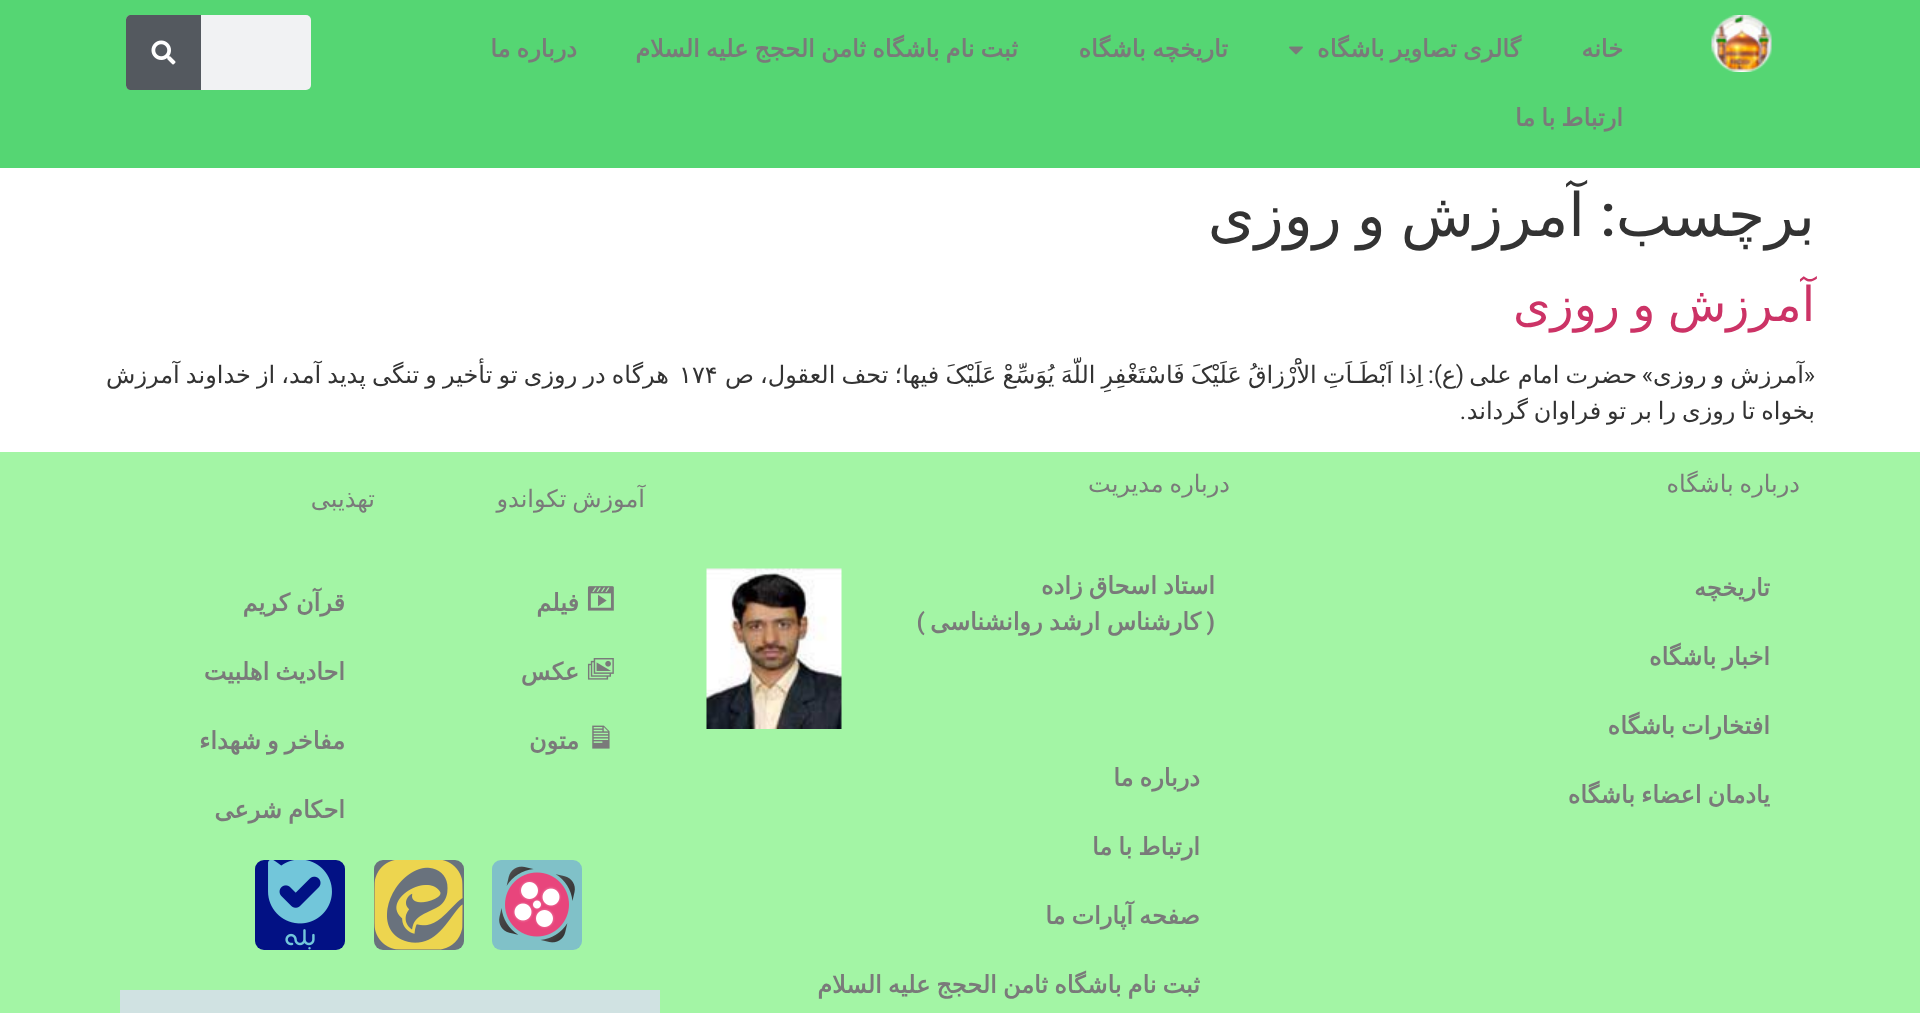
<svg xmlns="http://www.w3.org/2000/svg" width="1920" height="1013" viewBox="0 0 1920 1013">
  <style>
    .t1 { font: bold 24px DejaVu Sans; direction: rtl; fill: #7a7a7a; }
    .t2 { font: 60px DejaVu Sans; direction: rtl; fill: #333; }
    .t3 { font: 500 60px Roboto; direction: rtl; fill: #333; }
    .t4 { font: 48px DejaVu Sans; direction: rtl; fill: #c36; }
    .t5 { font: 24px DejaVu Sans; direction: rtl; fill: #333; }
    .t6 { font: 24px Roboto; direction: rtl; fill: #333; }
    .t7 { font: 24px DejaVu Sans; fill: #333; }
    .t8 { font: 24px DejaVu Sans; direction: rtl; fill: #7a7a7a; }
    .t9 { font: bold 24px Roboto; direction: rtl; fill: #7a7a7a; }
  </style>
  <rect width="100%" height="100%" fill="#fff"/>
  <rect x="0" y="0" width="1920" height="168" fill="#55d673"/>
  <image x="1711" y="15" width="61" height="57" href="images/1.png"/>
  <text x="1623" y="57" class="t1">خانه</text>
  <text x="1521" y="57" word-spacing="-1.5" class="t1">گالری تصاویر باشگاه</text>
  <image x="1289" y="46" width="14" height="9" href="images/2.png"/>
  <text x="1228" y="57" word-spacing="-1.5" class="t1">تاریخچه باشگاه</text>
  <text x="1018" y="57" word-spacing="-1.5" class="t1">ثبت نام باشگاه ثامن الحجج علیه السلام</text>
  <text x="577" y="57" word-spacing="-1.5" class="t1">درباره ما</text>
  <text x="1623" y="126" word-spacing="-1.5" class="t1">ارتباط با ما</text>
  <rect x="126" y="15" width="185" height="75" rx="5" fill="#f1f2f3"/>
  <path d="M131 15H201V90H131C128 90 126 88 126 85V20C126 17 128 15 131 15Z" fill="#54595f"/>
  <image x="151" y="40" width="25" height="25" href="images/3.png"/>
  <text x="1815" y="236" class="t2">برچسب</text>
  <text x="1616" y="236" class="t3">:</text>
  <text x="1585" y="236" word-spacing="-4" class="t2">آمرزش و روزی</text>
  <text x="1815" y="321" word-spacing="-3" class="t4">آمرزش و روزی</text>
  <text x="1804" y="383" word-spacing="-1.5" class="t5">آمرزش و روزی</text>
  <text x="1815" y="383" class="t6">«</text>
  <text x="1653" y="383" class="t6">»</text>
  <text x="1637" y="383" word-spacing="-1.5" class="t5">حضرت امام علی</text>
  <text x="1464" y="383" class="t6">(</text>
  <text x="1456" y="383" class="t5">ع</text>
  <text x="1423" y="383" word-spacing="-1.5" class="t5">اِذا اَبْطَـاَتِ الاَْرْزاقُ عَلَیْکَ فَاسْتَغْفِرِ اللّهَ یُوَسِّعْ عَلَیْکَ فیها؛ تحف العقول، ص</text>
  <text x="1442" y="383" class="t6">):</text>
  <text x="679" y="383" class="t7">۱۷۴</text>
  <text x="669" y="383" word-spacing="-1.5" class="t5">هرگاه در روزى تو تأخیر و تنگى پدید آمد، از خداوند آمرزش</text>
  <text x="1815" y="419" word-spacing="-1.75" class="t5">بخواه تا روزى را بر تو فراوان گرداند</text>
  <text x="1466" y="419" class="t6">.</text>
  <rect x="0" y="452" width="1920" height="561" fill="#a3f5a5"/>
  <text x="1800" y="492" word-spacing="-1.75" class="t8">درباره باشگاه</text>
  <text x="1770" y="596" class="t1">تاریخچه</text>
  <text x="1770" y="665" word-spacing="-1.5" class="t1">اخبار باشگاه</text>
  <text x="1770" y="734" word-spacing="-1.5" class="t1">افتخارات باشگاه</text>
  <text x="1770" y="803" word-spacing="-1.5" class="t1">یادمان اعضاء باشگاه</text>
  <text x="1230" y="492" word-spacing="-1.75" class="t8">درباره مدیریت</text>
  <text x="1215" y="594" word-spacing="-1.5" class="t1">استاد اسحاق زاده</text>
  <text x="1215" y="630" class="t9">(</text>
  <text x="1201" y="630" word-spacing="-1" class="t1">کارشناس ارشد روانشناسی</text>
  <text x="925" y="630" class="t9">)</text>
  <image x="706" y="568" width="136" height="161" href="images/4.png"/>
  <text x="1200" y="786" word-spacing="-1.5" class="t1">درباره ما</text>
  <text x="1200" y="855" word-spacing="-1.5" class="t1">ارتباط با ما</text>
  <text x="1200" y="924" word-spacing="-1.5" class="t1">صفحه آپارات ما</text>
  <text x="1200" y="993" word-spacing="-1.5" class="t1">ثبت نام باشگاه ثامن الحجج علیه السلام</text>
  <text x="645" y="507" word-spacing="-1.75" class="t8">آموزش تکواندو</text>
  <image x="587" y="586" width="27" height="25" href="images/5.png"/>
  <text x="579" y="611" class="t1">فیلم</text>
  <image x="587" y="658" width="27" height="22" href="images/6.png"/>
  <text x="579" y="680" class="t1">عکس</text>
  <image x="592" y="725" width="18" height="24" href="images/7.png"/>
  <text x="579" y="749" class="t1">متون</text>
  <text x="375" y="507" class="t8">تهذیبی</text>
  <text x="345" y="611" word-spacing="-1.5" class="t1">قرآن کریم</text>
  <text x="345" y="680" word-spacing="-1.5" class="t1">احادیث اهلبیت</text>
  <text x="345" y="749" word-spacing="-1.5" class="t1">مفاخر و شهداء</text>
  <text x="345" y="818" word-spacing="-1.5" class="t1">احکام شرعی</text>
  <rect x="492" y="860" width="90" height="90" rx="9" fill="#80c1c8"/>
  <image x="499" y="866" width="76" height="77" href="images/8.png"/>
  <rect x="374" y="860" width="90" height="90" rx="9" fill="#69727d"/>
  <image x="374" y="860" width="89" height="90" href="images/9.png"/>
  <rect x="255" y="860" width="90" height="90" rx="9" fill="#021184"/>
  <image x="268" y="860" width="64" height="90" href="images/10.png"/>
  <rect x="120" y="990" width="540" height="23" fill="#d0e2e2"/>
</svg>
